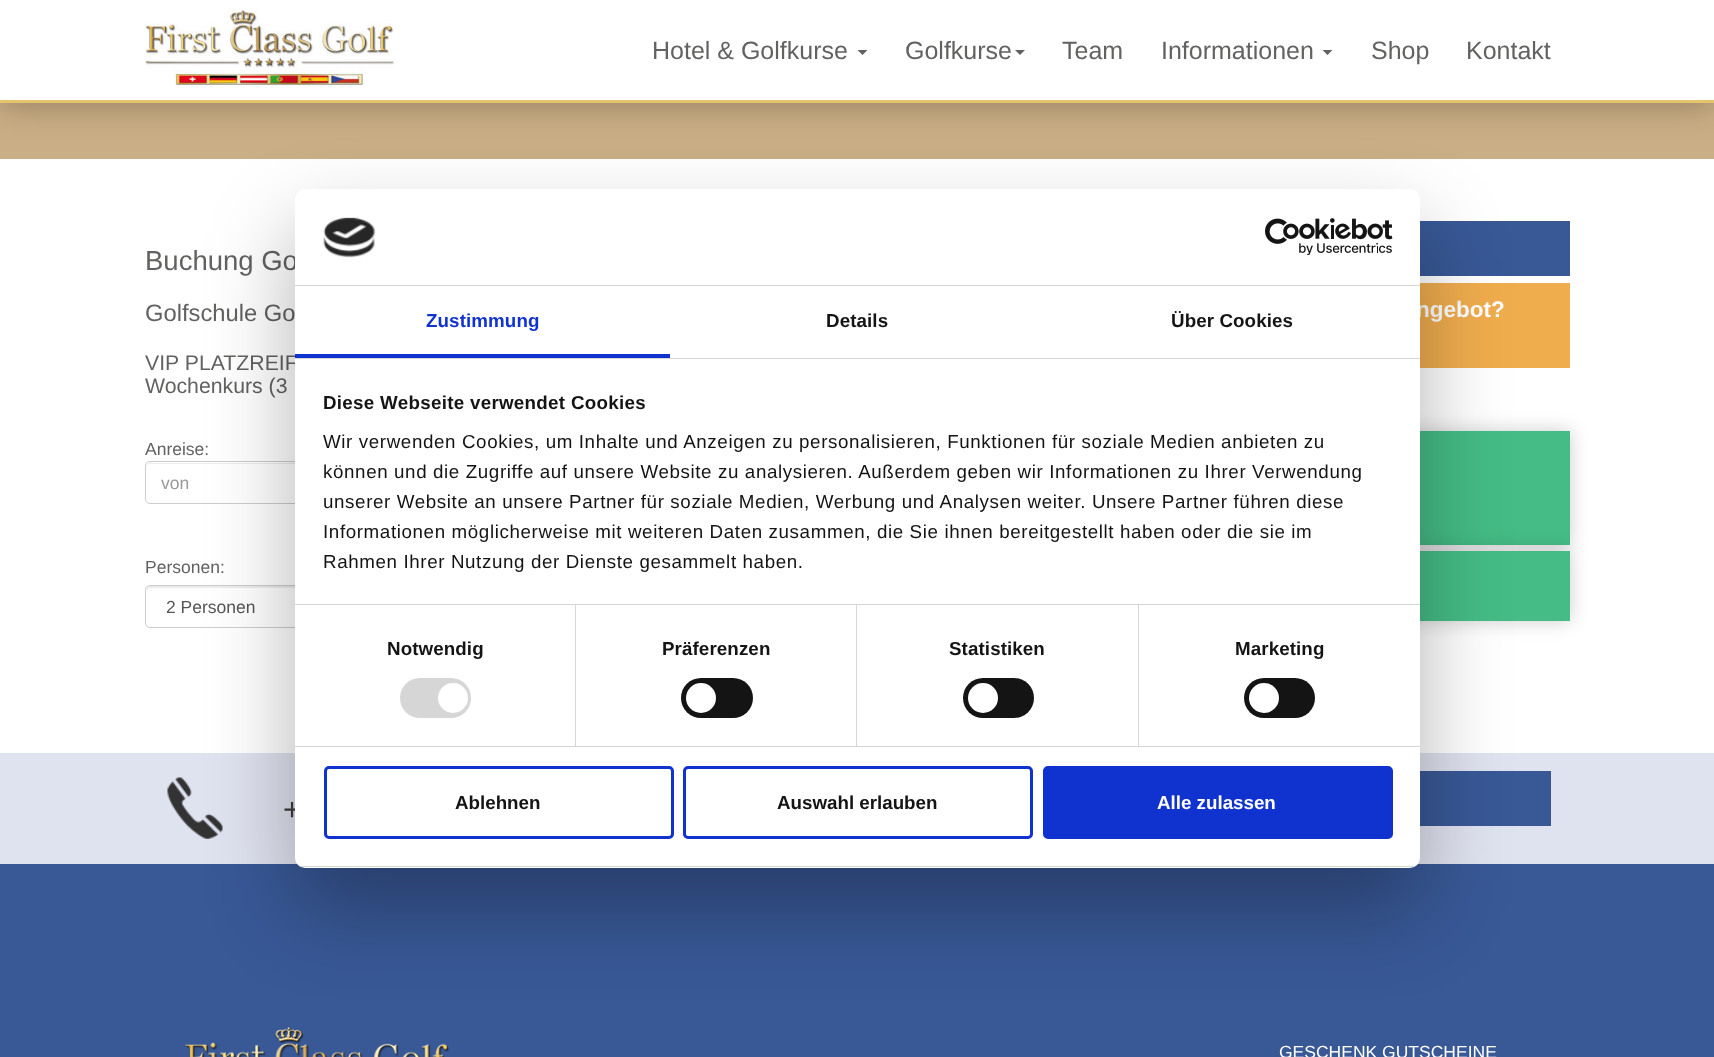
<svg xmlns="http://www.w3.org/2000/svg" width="1714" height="1057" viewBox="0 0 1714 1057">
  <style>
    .t1 { font: 25px Liberation Sans; fill: #626261; }
    .t2 { font: 27.5px Liberation Sans; fill: #626261; }
    .t3 { font: 23.75px Liberation Sans; fill: #626261; }
    .t4 { font: 21.25px Liberation Sans; fill: #626261; }
    .t5 { font: 17.5px Liberation Sans; fill: #626261; }
    .t6 { font: 17.5px Liberation Sans; fill: #999; }
    .t7 { font: 17.5px Liberation Sans; fill: #555; }
    .t8 { font: bold 22.5px Liberation Sans; fill: #fff; }
    .t9 { font: 31px Liberation Sans; fill: #333; }
    .t10 { font: bold 18.75px Liberation Sans; letter-spacing: 0.1px; fill: #1032cf; }
    .t11 { font: bold 18.75px Liberation Sans; letter-spacing: 0.1px; fill: #141414; }
    .t12 { font: bold 18.75px Liberation Sans; letter-spacing: 0.3px; fill: #141414; }
    .t13 { font: 18.75px Liberation Sans; letter-spacing: 0.62px; fill: #141414; }
    .t14 { font: bold 18.75px Liberation Sans; fill: #141414; }
    .t15 { font: bold 18.75px Liberation Sans; fill: #fff; }
    .t16 { font: 17.5px Liberation Sans; fill: #fff; }
  </style>
  <defs>
    <clipPath id="clip1"><rect x="295" y="189" width="1125" height="679" rx="10"/></clipPath>
  </defs>
  <rect width="100%" height="100%" fill="#fff"/>
  <rect x="0" y="103" width="1714" height="56" fill="#caae85"/>
  <rect x="0" y="0" width="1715" height="103" fill="#0000004d" filter="blur(17.5px)"/>
  <rect x="0" y="0" width="1714" height="100" fill="#fff"/>
  <rect x="0" y="100" width="1714" height="3" fill="#e4c46c"/>
  <image x="145" y="10" width="250" height="75" href="images/1.png"/>
  <text x="652" y="59" class="t1">Hotel &amp; Golfkurse</text>
  <path d="M857.5 50H867.5L862.5 55Z" fill="#626261"/>
  <text x="905" y="59" class="t1">Golfkurse</text>
  <path d="M1015 50H1025L1020 55Z" fill="#626261"/>
  <text x="1062" y="59" class="t1">Team</text>
  <text x="1161" y="59" class="t1">Informationen</text>
  <path d="M1322.5 50H1332.5L1327.5 55Z" fill="#626261"/>
  <text x="1371" y="59" class="t1">Shop</text>
  <text x="1466" y="59" class="t1">Kontakt</text>
  <text x="145" y="270" class="t2">Buchung Go</text>
  <text x="145" y="321" class="t3">Golfschule Go</text>
  <text x="145" y="370" class="t4">VIP PLATZREIF</text>
  <text x="145" y="393" class="t4">Wochenkurs (3</text>
  <text x="145" y="455" class="t5">Anreise:</text>
  <path d="M150 464H316C318 464 320 465 320 468V467C320 465 318 463 316 463H150C148 463 146 465 146 467V468C146 465 148 464 150 464Z" fill="#ececec"/>
  <rect x="145.5" y="461.5" width="175" height="42" rx="4.5" fill="none" stroke="#ccc"/>
  <text x="161" y="489" class="t6">von</text>
  <text x="145" y="573" class="t5">Personen:</text>
  <path d="M150 588H389L391 589V591V590C391 588 389 586 387 586H150C148 586 146 588 146 590V591C146 589 148 588 150 588Z" fill="#ececec"/>
  <rect x="145.5" y="585.5" width="247" height="42" rx="4.5" fill="none" stroke="#ccc"/>
  <text x="166" y="613" class="t7">2 Personen</text>
  <rect x="1420" y="221" width="150" height="55" fill="#385896"/>
  <rect x="1420" y="283" width="150" height="85" fill="#f0ad4e"/>
  <text x="1416" y="317" class="t8">ngebot?</text>
  <rect x="999" y="431" width="571" height="114" fill="#00000033" filter="blur(9.5px)"/>
  <rect x="1420" y="431" width="150" height="114" fill="#45bc85"/>
  <rect x="999" y="551" width="571" height="70" fill="#00000033" filter="blur(9.5px)"/>
  <rect x="1420" y="551" width="150" height="70" fill="#45bc85"/>
  <rect x="0" y="864" width="1714" height="193" fill="#385896"/>
  <rect x="0" y="753" width="1714" height="111" fill="#dfe2ef"/>
  <image x="167" y="777" width="56" height="62" href="images/4.png"/>
  <rect x="1420" y="771" width="131" height="55" fill="#385896"/>
  <image x="185" y="1027" width="264" height="30" href="images/5.png"/>
  <rect x="295" y="229" width="1125" height="679" rx="10" fill="#0000004d" filter="blur(42.5px)"/>
  <text x="283" y="820" class="t9">+</text>
  <rect x="295" y="189" width="1125" height="679" rx="10" fill="#fff"/>
  <rect x="295" y="285" width="1125" height="1" fill="#d6d6d6"/>
  <image x="323" y="217" width="53" height="41" href="images/2.png"/>
  <image x="1265" y="218" width="128" height="37" href="images/3.png"/>
  <rect x="295" y="358" width="1125" height="1" fill="#d6d6d6"/>
  <rect x="295" y="354" width="375" height="4" fill="#1032cf"/>
  <text x="426" y="327" class="t10">Zustimmung</text>
  <text x="826" y="327" class="t11">Details</text>
  <text x="1171" y="327" class="t11">Über Cookies</text>
  <rect x="295" y="604" width="1125" height="1" fill="#d6d6d6"/>
  <text x="323" y="409" class="t12">Diese Webseite verwendet Cookies</text>
  <text x="323" y="448" class="t13">Wir verwenden Cookies, um Inhalte und Anzeigen zu personalisieren, Funktionen für soziale Medien anbieten zu</text>
  <text x="323" y="478" class="t13">können und die Zugriffe auf unsere Website zu analysieren. Außerdem geben wir Informationen zu Ihrer Verwendung</text>
  <text x="323" y="508" class="t13">unserer Website an unsere Partner für soziale Medien, Werbung und Analysen weiter. Unsere Partner führen diese</text>
  <text x="323" y="538" class="t13">Informationen möglicherweise mit weiteren Daten zusammen, die Sie ihnen bereitgestellt haben oder die sie im</text>
  <text x="323" y="568" class="t13">Rahmen Ihrer Nutzung der Dienste gesammelt haben.</text>
  <rect x="295" y="746" width="1125" height="1" fill="#d6d6d6"/>
  <rect x="575" y="605" width="1" height="141" fill="#d6d6d6"/>
  <text x="387" y="655" class="t11">Notwendig</text>
  <rect x="400" y="678" width="71" height="40" rx="20" fill="#d6d6d6"/>
  <circle cx="453" cy="698" r="15" fill="#fff"/>
  <rect x="856" y="605" width="1" height="141" fill="#d6d6d6"/>
  <text x="662" y="655" class="t11">Präferenzen</text>
  <rect x="681" y="678" width="72" height="40" rx="20" fill="#141414"/>
  <circle cx="701" cy="698" r="15" fill="#fff"/>
  <rect x="1138" y="605" width="1" height="141" fill="#d6d6d6"/>
  <text x="949" y="655" class="t11">Statistiken</text>
  <rect x="963" y="678" width="71" height="40" rx="20" fill="#141414"/>
  <circle cx="983" cy="698" r="15" fill="#fff"/>
  <text x="1235" y="655" class="t11">Marketing</text>
  <rect x="1244" y="678" width="71" height="40" rx="20" fill="#141414"/>
  <circle cx="1264" cy="698" r="15" fill="#fff"/>
  <g clip-path="url(#clip1)">
    <rect x="295" y="866" width="1125" height="1" fill="#d6d6d6"/>
  </g>
  <rect x="325.5" y="767.5" width="347" height="70" rx="3.5" fill="none" stroke="#1032cf" stroke-width="3"/>
  <text x="455" y="809" class="t14">Ablehnen</text>
  <rect x="684.5" y="767.5" width="347" height="70" rx="3.5" fill="none" stroke="#1032cf" stroke-width="3"/>
  <text x="777" y="809" class="t14">Auswahl erlauben</text>
  <rect x="1044.5" y="767.5" width="347" height="70" rx="3.5" fill="#1032cf" stroke="#1032cf" stroke-width="3"/>
  <text x="1157" y="809" class="t15">Alle zulassen</text>
  <text x="1279" y="1058" class="t16">GESCHENK GUTSCHEINE</text>
</svg>
